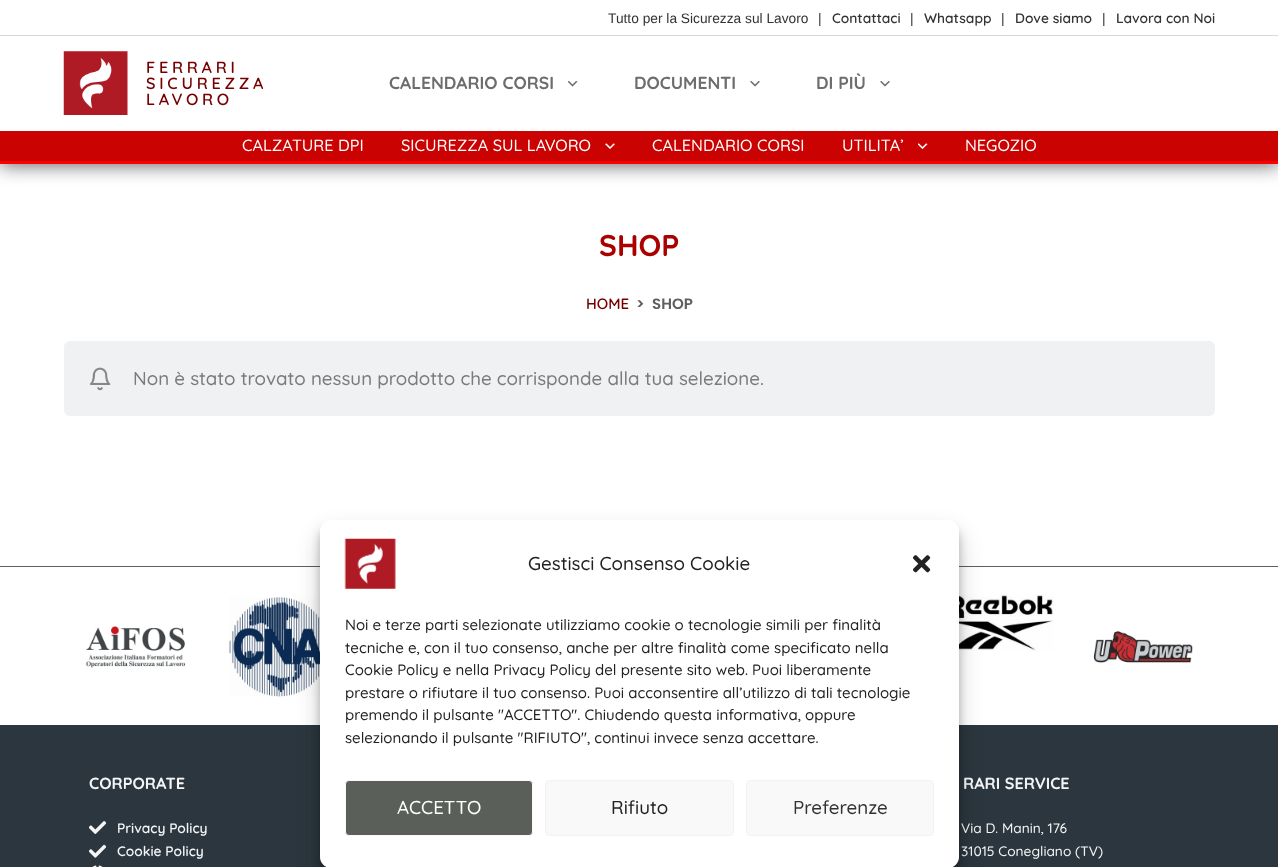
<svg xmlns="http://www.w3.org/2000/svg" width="1278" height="867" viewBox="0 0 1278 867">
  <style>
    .t1 { font: 13.75px Liberation Sans; fill: #333; }
    .t2 { font: 600 13.75px Quicksand; fill: #333; }
    .t3 { font: 600 16.25px Quicksand; letter-spacing: 3.75px; fill: #760000; }
    .t4 { font: bold 17.5px Quicksand; fill: #6d6d6d; }
    .t5 { font: 500 16.25px Quicksand; fill: #fff; }
    .t6 { font: bold 30px Quicksand; fill: #a00; }
    .t7 { font: 600 15px Quicksand; fill: #760000; }
    .t8 { font: 600 15px Poppins; fill: #5f5f5f; }
    .t9 { font: 500 18.75px Quicksand; fill: #7b7b7b; }
    .t10 { font: bold 16.25px Quicksand; fill: #f4f5f6; }
    .t11 { font: 600 13.75px Quicksand; fill: #f4f5f6; }
    .t12 { font: 500 13.75px Quicksand; fill: #f4f5f6; }
    .t13 { font: 500 18.75px Quicksand; fill: #222; }
    .t14 { font: 500 15px Quicksand; fill: #222; }
    .t15 { font: 500 18.75px Quicksand; fill: #fff; }
    .t16 { font: 500 18.75px Quicksand; fill: #333; }
  </style>
  <rect width="100%" height="100%" fill="#fff"/>
  <rect x="0" y="35" width="1278" height="1" fill="#d5d8dc"/>
  <text x="608" y="23" class="t1">Tutto per la Sicurezza sul Lavoro</text>
  <text x="818" y="23" class="t1">|</text>
  <text x="832" y="23" class="t2">Contattaci</text>
  <text x="910" y="23" class="t1">|</text>
  <text x="924" y="23" class="t2">Whatsapp</text>
  <text x="1001" y="23" class="t1">|</text>
  <text x="1015" y="23" class="t2">Dove siamo</text>
  <text x="1102" y="23" class="t1">|</text>
  <text x="1116" y="23" class="t2">Lavora con Noi</text>
  <rect x="0" y="133" width="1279" height="32" fill="#5f5f5f" filter="blur(9.5px)"/>
  <rect x="0" y="113" width="1278" height="18" fill="#fff"/>
  <image x="63" y="51" width="65" height="64" href="images/1.png"/>
  <text x="146" y="73" class="t3">FERRARI</text>
  <text x="146" y="89" class="t3">SICUREZZA</text>
  <text x="146" y="105" class="t3">LAVORO</text>
  <text x="389" y="89" class="t4">CALENDARIO CORSI</text>
  <image x="568" y="81" width="10" height="6" href="images/2.png"/>
  <text x="634" y="89" class="t4">DOCUMENTI</text>
  <image x="750" y="81" width="10" height="6" href="images/3.png"/>
  <text x="816" y="89" class="t4">DI PIÙ</text>
  <image x="880" y="81" width="10" height="6" href="images/3.png"/>
  <rect x="0" y="131" width="1278" height="30" fill="#ca0202"/>
  <rect x="0" y="161" width="1278" height="3" fill="#fb0000"/>
  <text x="242" y="151" class="t5">CALZATURE DPI</text>
  <text x="401" y="151" class="t5">SICUREZZA SUL LAVORO</text>
  <image x="605" y="143" width="10" height="6" href="images/4.png"/>
  <text x="652" y="151" class="t5">CALENDARIO CORSI</text>
  <text x="842" y="151" class="t5">UTILITA’</text>
  <image x="918" y="143" width="10" height="6" href="images/5.png"/>
  <text x="965" y="151" class="t5">NEGOZIO</text>
  <text x="599" y="256" class="t6">SHOP</text>
  <text x="586" y="309" class="t7">HOME</text>
  <text x="636" y="309" class="t8">&gt;</text>
  <text x="652" y="309" class="t8">SHOP</text>
  <rect x="64" y="341" width="1151" height="75" rx="6" fill="#f0f1f3"/>
  <image x="89" y="367" width="22" height="24" href="images/6.png"/>
  <text x="133" y="385" class="t9">Non è stato trovato nessun prodotto che corrisponde alla tua selezione.</text>
  <rect x="0" y="566" width="320" height="1" fill="#5f5f5f"/>
  <rect x="959" y="566" width="319" height="1" fill="#5f5f5f"/>
  <image x="86" y="626" width="100" height="42" href="images/7.png"/>
  <image x="229" y="597" width="91" height="100" href="images/8.png"/>
  <image x="959" y="594" width="95" height="57" href="images/9.png"/>
  <image x="1093" y="631" width="100" height="32" href="images/10.png"/>
  <rect x="0" y="725" width="1278" height="142" fill="#2b363e"/>
  <text x="89" y="789" class="t10">CORPORATE</text>
  <image x="89" y="821" width="17" height="13" href="images/11.png"/>
  <text x="117" y="833" class="t11">Privacy Policy</text>
  <image x="89" y="844" width="17" height="14" href="images/12.png"/>
  <text x="117" y="856" class="t11">Cookie Policy</text>
  <image x="92" y="865" width="11" height="2" href="images/13.png"/>
  <text x="963" y="789" class="t10">RARI SERVICE</text>
  <text x="961" y="833" class="t12">Via D. Manin, 176</text>
  <text x="961" y="856" class="t12">31015 Conegliano (TV)</text>
  <rect x="320" y="528" width="639" height="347" rx="11" fill="#0000003b" filter="blur(4px)"/>
  <rect x="320" y="533" width="639" height="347" rx="11" fill="#00000030" filter="blur(12.5px)"/>
  <rect x="320" y="520" width="639" height="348" rx="11" fill="#fff"/>
  <image x="344" y="538" width="52" height="51" href="images/14.png"/>
  <text x="528" y="570" class="t13">Gestisci Consenso Cookie</text>
  <image x="913" y="555" width="18" height="18" href="images/15.png"/>
  <text x="345" y="630" class="t14">Noi e terze parti selezionate utilizziamo cookie o tecnologie simili per finalità</text>
  <text x="345" y="653" class="t14">tecniche e, con il tuo consenso, anche per altre finalità come specificato nella</text>
  <text x="345" y="675" class="t14">Cookie Policy e nella Privacy Policy del presente sito web. Puoi liberamente</text>
  <text x="345" y="698" class="t14">prestare o rifiutare il tuo consenso. Puoi acconsentire all’utilizzo di tali tecnologie</text>
  <text x="345" y="720" class="t14">premendo il pulsante "ACCETTO". Chiudendo questa informativa, oppure</text>
  <text x="345" y="743" class="t14">selezionando il pulsante "RIFIUTO", continui invece senza accettare.</text>
  <rect x="345.5" y="780.5" width="187" height="55" rx="3.5" fill="#5a5f5a" stroke="#fcf8f9"/>
  <text x="397" y="814" class="t15">ACCETTO</text>
  <rect x="545.5" y="780.5" width="188" height="55" rx="3.5" fill="#f9f9f9" stroke="#f2f2f2"/>
  <text x="611" y="814" class="t13">Rifiuto</text>
  <rect x="746.5" y="780.5" width="187" height="55" rx="3.5" fill="#f9f9f9" stroke="#f2f2f2"/>
  <text x="793" y="814" class="t16">Preferenze</text>
</svg>
